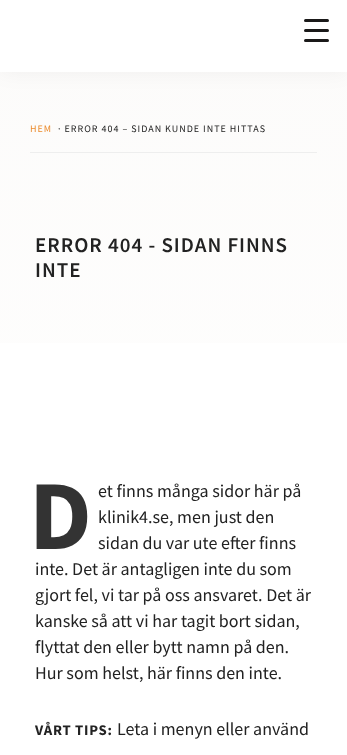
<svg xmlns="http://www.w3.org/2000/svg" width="347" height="755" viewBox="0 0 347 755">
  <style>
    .t1 { font: 10px Source Sans Pro; letter-spacing: 1px; fill: #eb8b2d; }
    .t2 { font: 10px Source Sans Pro; letter-spacing: 1px; fill: #222; }
    .t3 { font: 600 21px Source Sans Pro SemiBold; letter-spacing: 1px; fill: #222; }
    .t4 { font: bold 99px Source Sans Pro; fill: #333; }
    .t5 { font: 18px Source Sans Pro; fill: #222; }
    .t6 { font: bold 14.75px Source Sans Pro; letter-spacing: 0.75px; fill: #222; }
  </style>
  <defs>
    <linearGradient id="g1" gradientUnits="userSpaceOnUse" x1="173" y1="0" x2="174" y2="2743"><stop offset="0" stop-color="#fcfbfa"/><stop offset="0.25" stop-color="#fff"/><stop offset="1" stop-color="#fff"/></linearGradient>
  </defs>
  <rect width="100%" height="100%" fill="#fff"/>
  <rect x="0" y="72" width="347" height="271" fill="url(#g1)"/>
  <rect x="0" y="0" width="347" height="72" fill="#0000000d" filter="blur(10px)"/>
  <rect x="0" y="0" width="347" height="72" fill="#fff"/>
  <rect x="304" y="29" width="25" height="3" rx="1.5" fill="#1a1919"/>
  <rect x="304" y="19" width="25" height="3" rx="1.5" fill="#1a1919"/>
  <rect x="304" y="39" width="25" height="3" rx="1.5" fill="#1a1919"/>
  <rect x="30" y="152" width="287" height="1" fill="#eee"/>
  <text x="30" y="132" class="t1">HEM</text>
  <text x="58" y="132" class="t2">· ERROR 404 – SIDAN KUNDE INTE HITTAS</text>
  <text x="35" y="252" class="t3">ERROR 404 - SIDAN FINNS</text>
  <text x="35" y="277" class="t3">INTE</text>
  <text x="29" y="549" class="t4">D</text>
  <text x="98" y="497" class="t5">et finns många sidor här på</text>
  <text x="98" y="523" class="t5">klinik4.se, men just den</text>
  <text x="98" y="549" class="t5">sidan du var ute efter finns</text>
  <text x="35" y="575" class="t5">inte. Det är antagligen inte du som</text>
  <text x="35" y="601" class="t5">gjort fel, vi tar på oss ansvaret. Det är</text>
  <text x="35" y="627" class="t5">kanske så att vi har tagit bort sidan,</text>
  <text x="35" y="653" class="t5">flyttat den eller bytt namn på den.</text>
  <text x="35" y="679" class="t5">Hur som helst, här finns den inte.</text>
  <text x="35" y="735" class="t6">VÅRT TIPS:</text>
  <text x="117" y="735" class="t5">Leta i menyn eller använd</text>
</svg>
